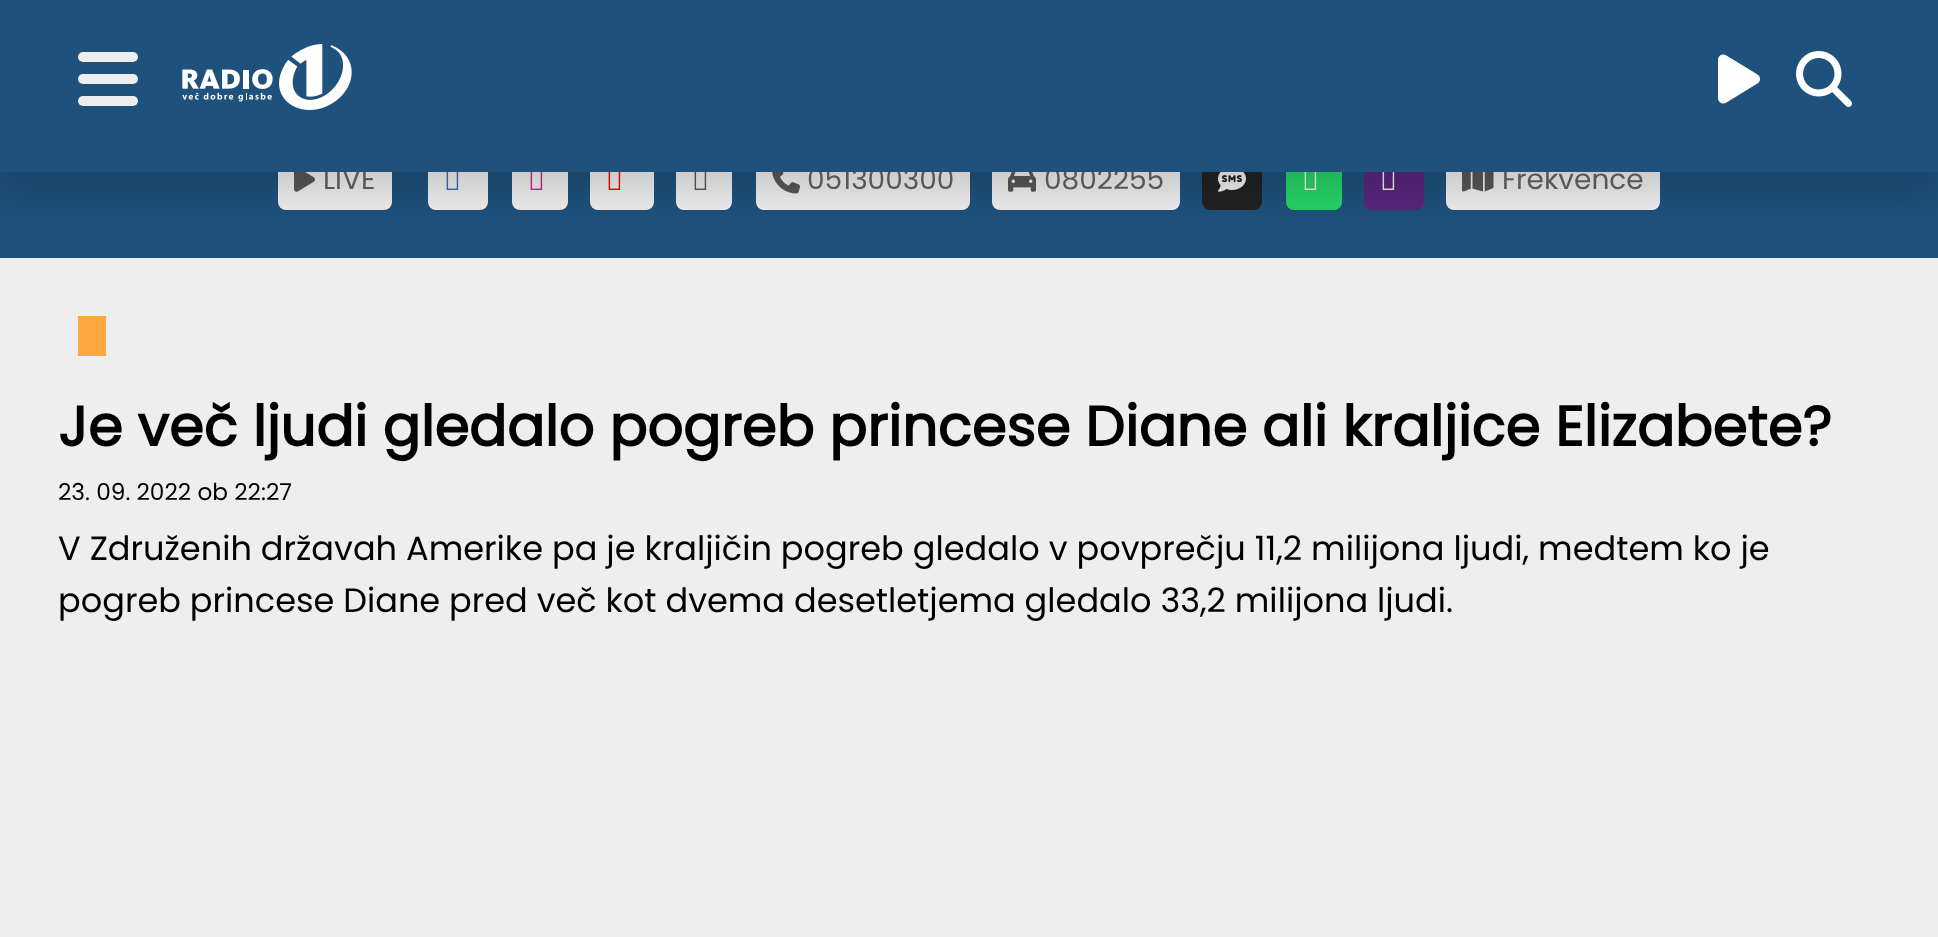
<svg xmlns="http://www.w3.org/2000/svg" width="1938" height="937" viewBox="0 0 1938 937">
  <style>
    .t1 { font: 28px Poppins; fill: #575757; }
    .t2 { font: bold 56px Poppins; fill: #000; }
    .t3 { font: 23.25px Poppins; fill: #000; }
    .t4 { font: 33.6px Poppins; fill: #000; }
  </style>
  <rect width="100%" height="100%" fill="#1e517c"/>
  <rect x="278" y="152" width="114" height="58" rx="8" fill="#eee"/>
  <image x="294" y="172" width="21" height="20" href="images/4.png"/>
  <rect x="428" y="152" width="60" height="58" rx="8" fill="#eee"/>
  <image x="446" y="172" width="13" height="18" href="images/5.png"/>
  <rect x="512" y="152" width="56" height="58" rx="8" fill="#eee"/>
  <image x="530" y="172" width="13" height="18" href="images/6.png"/>
  <rect x="590" y="152" width="64" height="58" rx="8" fill="#eee"/>
  <image x="608" y="172" width="13" height="18" href="images/7.png"/>
  <rect x="676" y="152" width="56" height="58" rx="8" fill="#eee"/>
  <image x="694" y="172" width="13" height="18" href="images/8.png"/>
  <rect x="756" y="152" width="214" height="58" rx="8" fill="#eee"/>
  <image x="772" y="172" width="28" height="22" href="images/9.png"/>
  <rect x="992" y="152" width="188" height="58" rx="8" fill="#eee"/>
  <image x="1008" y="172" width="28" height="20" href="images/10.png"/>
  <rect x="1202" y="152" width="60" height="58" rx="8" fill="#222"/>
  <image x="1218" y="172" width="28" height="20" href="images/11.png"/>
  <rect x="1286" y="152" width="56" height="58" rx="8" fill="#25d366"/>
  <image x="1304" y="172" width="13" height="18" href="images/12.png"/>
  <rect x="1364" y="152" width="60" height="58" rx="8" fill="#59267c"/>
  <image x="1382" y="172" width="13" height="18" href="images/13.png"/>
  <rect x="1446" y="152" width="214" height="58" rx="8" fill="#eee"/>
  <image x="1462" y="172" width="32" height="20" href="images/14.png"/>
  <rect x="0" y="20" width="1938" height="172" fill="#00000029" filter="blur(20px)"/>
  <text x="323" y="189" class="t1">LIVE</text>
  <text x="807" y="189" class="t1">051300300</text>
  <text x="1044" y="189" class="t1">0802255</text>
  <text x="1502" y="189" class="t1">Frekvence</text>
  <rect x="0" y="0" width="1938" height="172" fill="#1e517c"/>
  <rect x="78" y="52" width="60" height="10" rx="5" fill="#eee"/>
  <rect x="78" y="74" width="60" height="10" rx="5" fill="#eee"/>
  <rect x="78" y="96" width="60" height="10" rx="5" fill="#eee"/>
  <image x="182" y="44" width="170" height="66" href="images/1.png"/>
  <image x="1718" y="54" width="42" height="50" href="images/2.png"/>
  <image x="1796" y="51" width="56" height="56" href="images/3.png"/>
  <rect x="0" y="258" width="1938" height="679" fill="#eee"/>
  <rect x="78" y="316" width="28" height="40" fill="#faa83f"/>
  <text x="58" y="446" class="t2">Je več ljudi gledalo pogreb princese Diane ali kraljice Elizabete?</text>
  <text x="58" y="500" class="t3">23. 09. 2022 ob 22:27</text>
  <text x="58" y="560" class="t4">V Združenih državah Amerike pa je kraljičin pogreb gledalo v povprečju 11,2 milijona ljudi, medtem ko je</text>
  <text x="58" y="612" word-spacing="-0.1" class="t4">pogreb princese Diane pred več kot dvema desetletjema gledalo 33,2 milijona ljudi.</text>
</svg>
